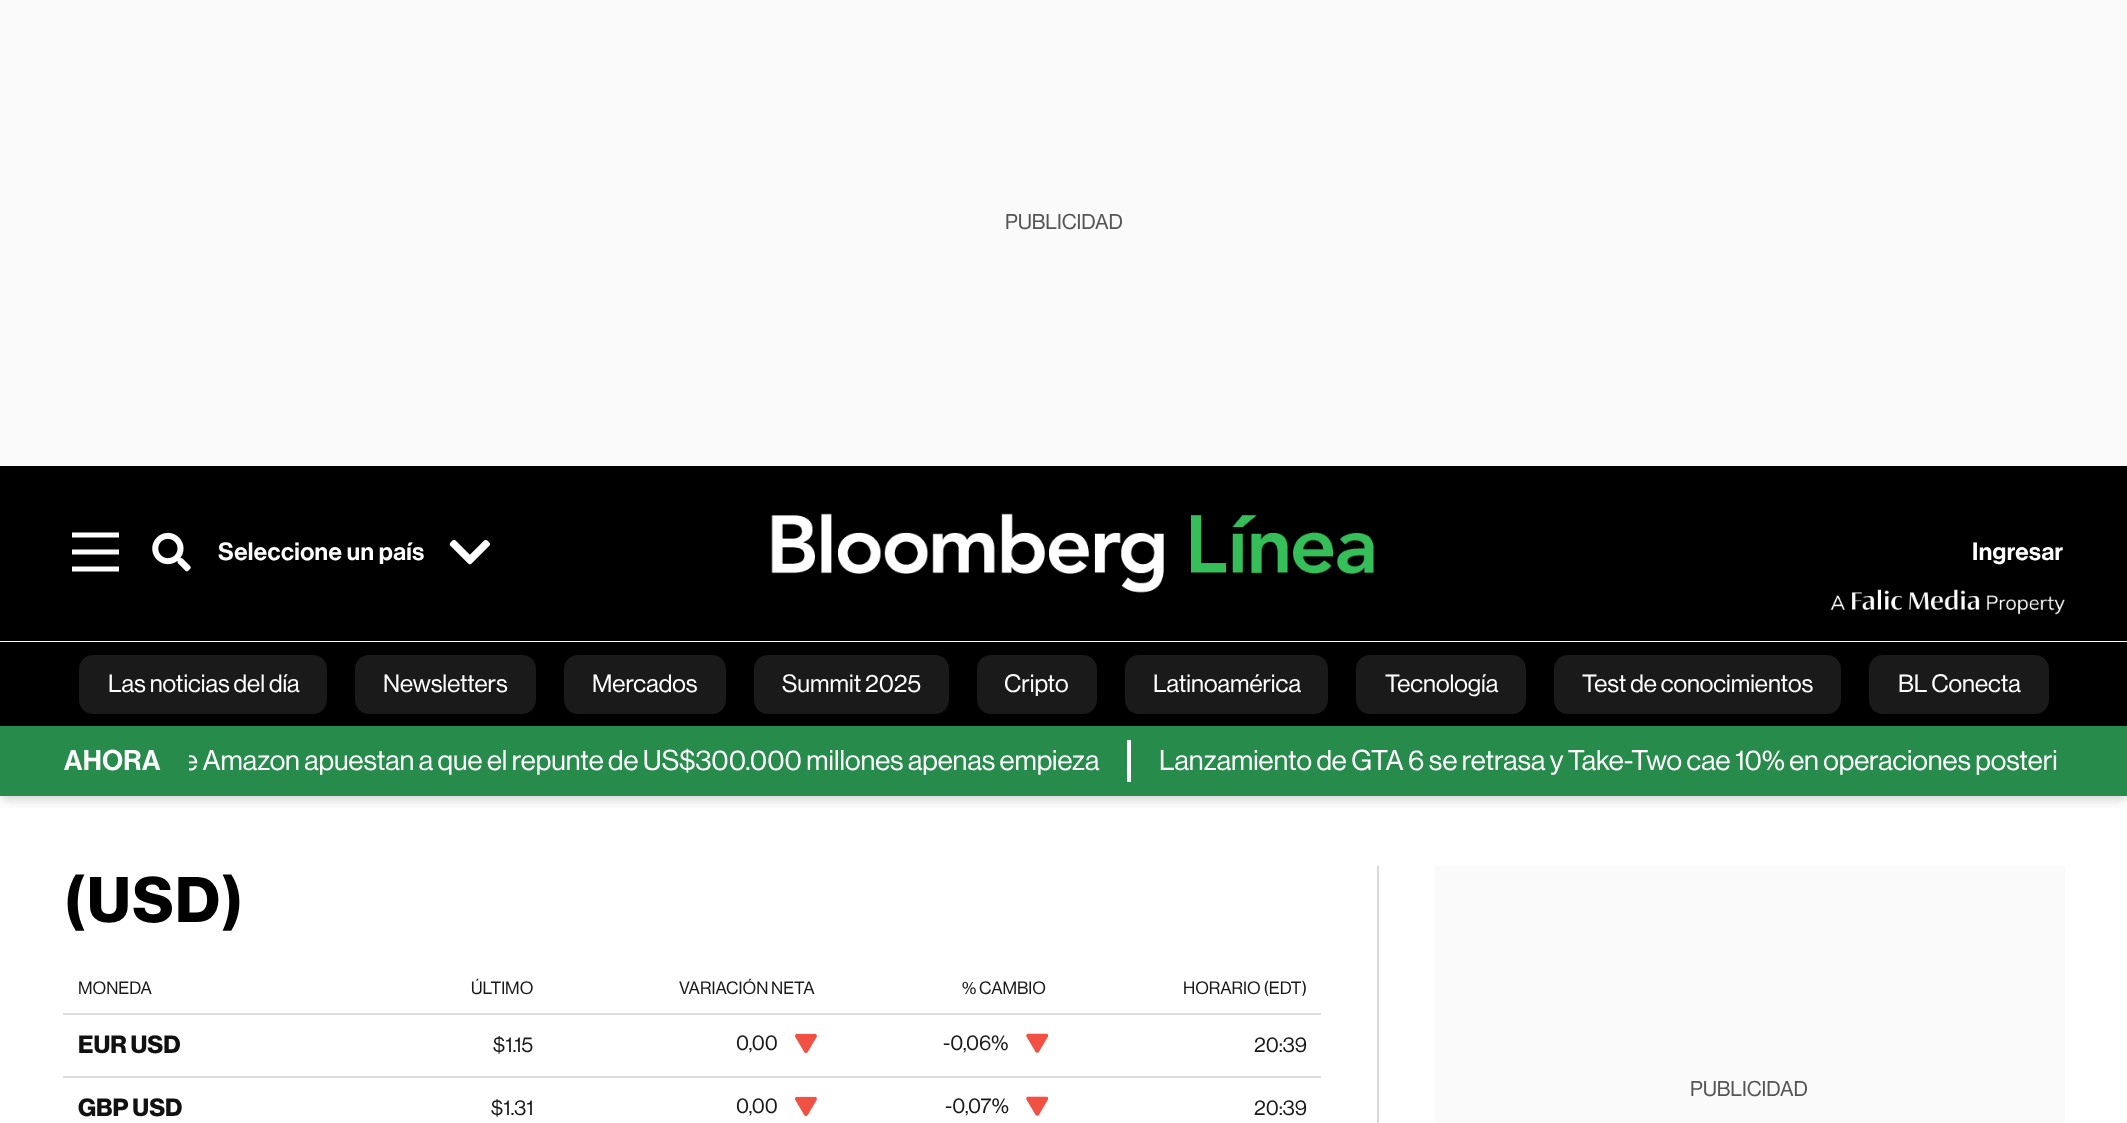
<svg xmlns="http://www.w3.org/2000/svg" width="2127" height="1123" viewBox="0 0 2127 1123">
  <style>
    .t1 { font: 500 21px 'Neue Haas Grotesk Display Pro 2'; fill: #555; }
    .t2 { font: 500 24.5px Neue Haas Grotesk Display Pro; letter-spacing: 0.4px; fill: #fff; }
    .t3 { font: 500 24.5px 'Neue Haas Grotesk Display Pro 2'; fill: #fff; }
    .t4 { font: 500 28px Neue Haas Grotesk Display Pro; letter-spacing: 0.4px; fill: #fff; }
    .t5 { font: 500 28px 'Neue Haas Grotesk Display Pro 2'; fill: #fff; }
    .t6 { font: bold 63px Neue Haas Grotesk Display Pro; letter-spacing: 1.75px; fill: #000; }
    .t7 { font: 500 17.5px 'Neue Haas Grotesk Display Pro 2'; fill: #191919; }
    .t8 { font: bold 24.5px Neue Haas Grotesk Display Pro; fill: #111; }
    .t9 { font: 500 21px 'Neue Haas Grotesk Display Pro 2'; fill: #191919; }
  </style>
  <defs>
    <clipPath id="clip1"><rect x="189" y="740" width="1876" height="42"/></clipPath>
  </defs>
  <rect width="100%" height="100%" fill="#fff"/>
  <rect x="0" y="0" width="2127" height="466" fill="#fafafa"/>
  <text x="1005" y="229" class="t1">PUBLICIDAD</text>
  <rect x="0" y="466" width="2127" height="175" fill="#000"/>
  <path d="M119 552H72M119 535H72M119 569H72" fill="none" stroke="#fff" stroke-width="5.2"/>
  <image x="152" y="532" width="39" height="40" href="images/1.png"/>
  <text x="218" y="560" class="t2">Seleccione un país</text>
  <image x="449" y="539" width="41" height="26" href="images/2.png"/>
  <image x="771" y="513" width="603" height="80" href="images/3.png"/>
  <text x="1972" y="560" class="t2">Ingresar</text>
  <image x="1830" y="589" width="235" height="26" href="images/4.png"/>
  <rect x="2" y="732" width="2124" height="66" fill="#0000000f" filter="blur(3.5px)"/>
  <rect x="2" y="735" width="2124" height="67" fill="#0000001a" filter="blur(5px)"/>
  <rect x="0" y="642" width="2127" height="84" fill="#000"/>
  <rect x="79" y="655" width="248" height="59" rx="14" fill="#1a1a1a"/>
  <text x="108" y="692" class="t3">Las noticias del día</text>
  <rect x="355" y="655" width="181" height="59" rx="14" fill="#1a1a1a"/>
  <text x="383" y="692" class="t3">Newsletters</text>
  <rect x="564" y="655" width="162" height="59" rx="14" fill="#1a1a1a"/>
  <text x="592" y="692" class="t3">Mercados</text>
  <rect x="754" y="655" width="195" height="59" rx="14" fill="#1a1a1a"/>
  <text x="782" y="692" class="t3">Summit 2025</text>
  <rect x="977" y="655" width="120" height="59" rx="14" fill="#1a1a1a"/>
  <text x="1004" y="692" class="t3">Cripto</text>
  <rect x="1125" y="655" width="203" height="59" rx="14" fill="#1a1a1a"/>
  <text x="1153" y="692" class="t3">Latinoamérica</text>
  <rect x="1356" y="655" width="170" height="59" rx="14" fill="#1a1a1a"/>
  <text x="1385" y="692" class="t3">Tecnología</text>
  <rect x="1554" y="655" width="287" height="59" rx="14" fill="#1a1a1a"/>
  <text x="1582" y="692" class="t3">Test de conocimientos</text>
  <rect x="1869" y="655" width="180" height="59" rx="14" fill="#1a1a1a"/>
  <text x="1898" y="692" class="t3">BL Conecta</text>
  <rect x="0" y="726" width="2127" height="70" fill="#278c4b"/>
  <text x="64" y="770" class="t4">AHORA</text>
  <rect x="1127" y="740" width="4" height="42" fill="#fff"/>
  <g clip-path="url(#clip1)">
    <text x="183" y="770" class="t5">e Amazon apuestan a que el repunte de US$300.000 millones apenas empieza</text>
  </g>
  <text x="1159" y="770" class="t5">Lanzamiento de GTA 6 se retrasa y Take-Two cae 10% en operaciones posteri</text>
  <rect x="1377" y="866" width="2" height="257" fill="#dadada"/>
  <text x="64" y="922" class="t6">(USD)</text>
  <text x="78" y="994" class="t7">MONEDA</text>
  <text x="471" y="994" class="t7">ÚLTIMO</text>
  <text x="679" y="994" class="t7">VARIACIÓN NETA</text>
  <text x="962" y="994" class="t7">% CAMBIO</text>
  <text x="1183" y="994" class="t7">HORARIO (EDT)</text>
  <rect x="63" y="1013" width="1258" height="2" fill="#ddd"/>
  <text x="78" y="1053" class="t8">EUR USD</text>
  <text x="493" y="1052" class="t9">$1.15</text>
  <text x="736" y="1050" class="t9">0,00</text>
  <image x="795" y="1033" width="22" height="20" href="images/5.png"/>
  <text x="943" y="1050" class="t9">-0,06%</text>
  <image x="1026" y="1033" width="23" height="20" href="images/6.png"/>
  <text x="1254" y="1052" class="t9">20:39</text>
  <rect x="63" y="1076" width="1258" height="2" fill="#ddd"/>
  <text x="78" y="1116" class="t8">GBP USD</text>
  <text x="491" y="1115" class="t9">$1.31</text>
  <text x="736" y="1113" class="t9">0,00</text>
  <image x="795" y="1096" width="22" height="20" href="images/5.png"/>
  <text x="945" y="1113" class="t9">-0,07%</text>
  <image x="1026" y="1096" width="23" height="20" href="images/6.png"/>
  <text x="1254" y="1115" class="t9">20:39</text>
  <rect x="1435" y="866" width="630" height="257" fill="#fafafa"/>
  <text x="1690" y="1096" class="t1">PUBLICIDAD</text>
</svg>
